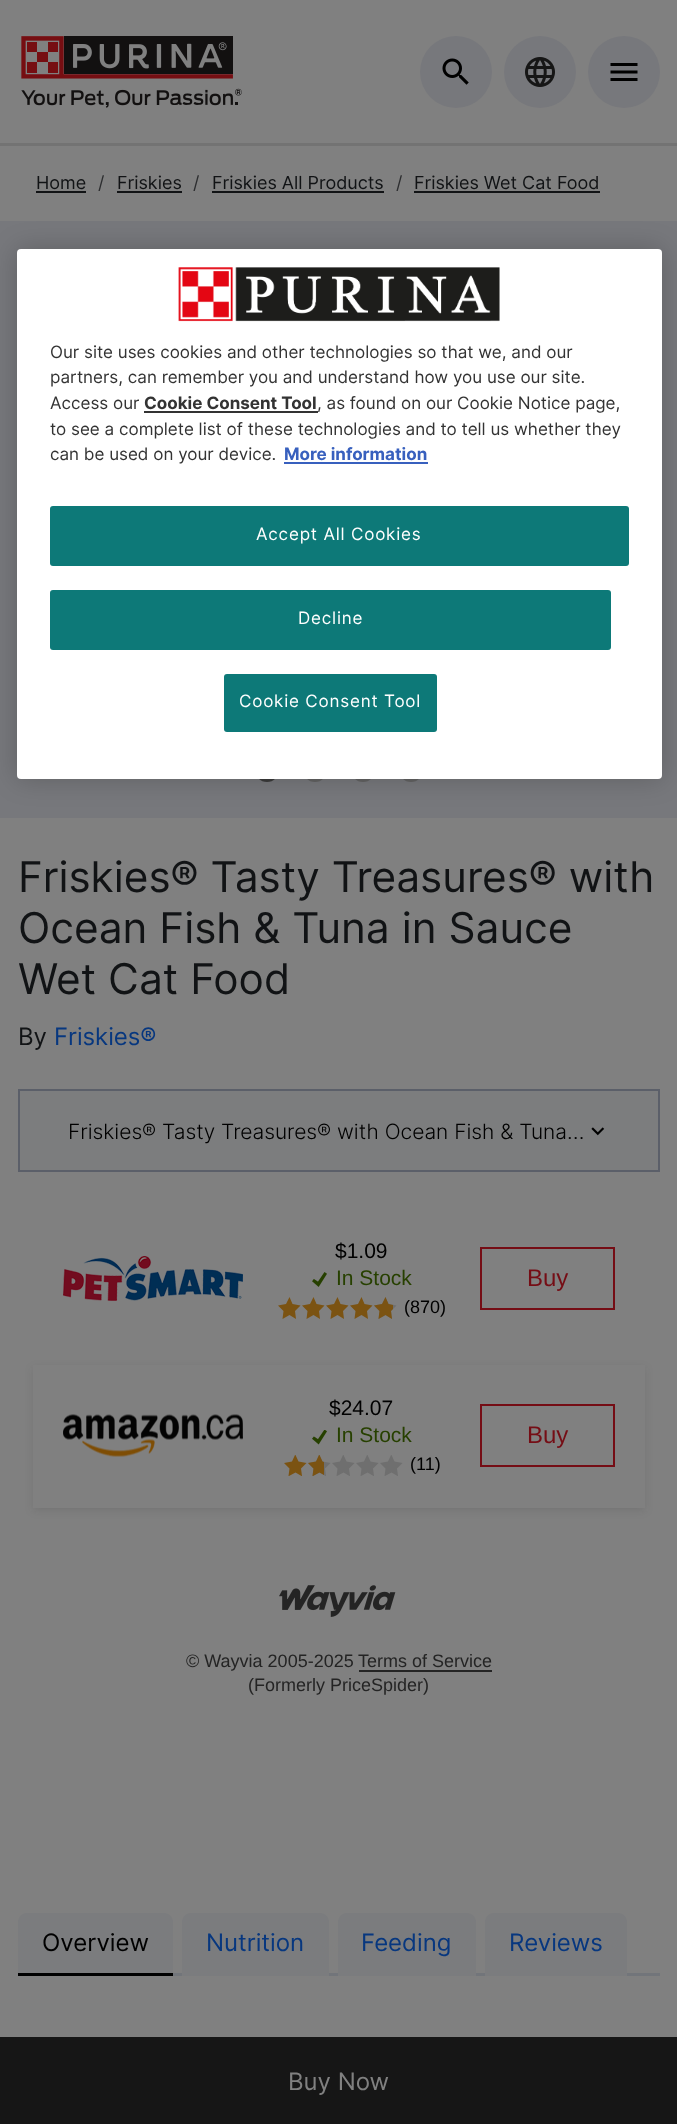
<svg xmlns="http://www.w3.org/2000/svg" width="677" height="2124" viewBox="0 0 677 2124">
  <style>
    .t1 { font: 18px Inter; fill: #111315; }
    .t2 { font: 18px Inter; fill: #2d2e30; }
    .t3 { font: 42.4px Inter; fill: #111315; }
    .t4 { font: 24px Inter; fill: #111315; }
    .t5 { font: 24px Inter; fill: #07377f; }
    .t6 { font: 300 21px Inter; fill: #000; }
    .t7 { font: 21px Liberation Sans; fill: #000; }
    .t8 { font: 21px Liberation Sans; fill: #274000; }
    .t9 { font: 18px Liberation Sans; fill: #000; }
    .t10 { font: 24px Liberation Sans; fill: #750d15; }
    .t11 { font: 18px Liberation Sans; fill: #242424; }
    .t12 { font: 24px Inter; fill: #808080; }
    .t13 { font: 24px Inter; fill: #000; }
    .t14 { font: 17.05px Inter; fill: #333; }
    .t15 { font: bold 17.05px Inter; fill: #333; }
    .t16 { font: bold 17.05px Inter; fill: #3860be; }
    .t17 { font: 17.05px Inter; letter-spacing: 0.8px; fill: #fff; }
  </style>
  <rect width="100%" height="100%" fill="#808080"/>
  <rect x="0" y="143" width="677" height="3" fill="#737373"/>
  <image x="21" y="36" width="221" height="72" href="images/1.png"/>
  <circle cx="456" cy="72" r="36" fill="#77787c"/>
  <image x="442" y="58" width="27" height="27" href="images/2.png"/>
  <circle cx="540" cy="72" r="36" fill="#77787c"/>
  <image x="525" y="57" width="30" height="30" href="images/3.png"/>
  <circle cx="624" cy="72" r="36" fill="#77787c"/>
  <image x="610" y="63" width="28" height="18" href="images/4.png"/>
  <text x="36" y="189" class="t1">Home</text>
  <rect x="36" y="191" width="50" height="2" fill="#111315"/>
  <text x="98" y="189" class="t2">/</text>
  <text x="117" y="189" class="t1">Friskies</text>
  <rect x="117" y="191" width="65" height="2" fill="#111315"/>
  <text x="193" y="189" class="t2">/</text>
  <text x="212" y="189" class="t1">Friskies All Products</text>
  <rect x="212" y="191" width="172" height="2" fill="#111315"/>
  <text x="396" y="189" class="t2">/</text>
  <text x="414" y="189" class="t1">Friskies Wet Cat Food</text>
  <rect x="414" y="191" width="186" height="2" fill="#111315"/>
  <rect x="0" y="221" width="677" height="597" fill="#77787c"/>
  <circle cx="267" cy="770" r="12" fill="#3b3b3b"/>
  <circle cx="315" cy="770" r="12" fill="#626262"/>
  <circle cx="363" cy="770" r="12" fill="#626262"/>
  <circle cx="411" cy="770" r="12" fill="#626262"/>
  <text x="18" y="892" class="t3">Friskies® Tasty Treasures® with</text>
  <text x="18" y="943" class="t3">Ocean Fish &amp; Tuna in Sauce</text>
  <text x="18" y="994" class="t3">Wet Cat Food</text>
  <text x="18" y="1045" class="t4">By</text>
  <text x="54" y="1045" class="t5">Friskies®</text>
  <rect x="19" y="1090" width="640" height="81" fill="#7c7d7e" stroke="#5b5f69" stroke-width="2"/>
  <text x="68" y="1139" class="t6">Friskies® Tasty Treasures® with Ocean Fish &amp; Tuna…</text>
  <image x="591" y="1127" width="14" height="9" href="images/5.png"/>
  <image x="63" y="1256" width="180" height="45" href="images/6.png"/>
  <text x="335" y="1258" class="t7">$1.09</text>
  <image x="312" y="1272" width="15" height="15" href="images/7.png"/>
  <text x="336" y="1285" class="t8">In Stock</text>
  <path d="M289.5 1297L286 1304L278 1305.5L283.5 1311L282.5 1319L289.5 1315L296 1319L295 1311L300.5 1305.5L292.5 1304ZM313.5 1297L310 1304L302 1305.5L307.5 1311L306.5 1319L313.5 1315L320 1319L319 1311L324.5 1305.5L316.5 1304Z" fill="#7b5312"/>
  <path d="M337.5 1297L334 1304L326 1305.5L331.5 1311L330.5 1319L337.5 1315L344 1319L343 1311L348.5 1305.5L340.5 1304ZM361.5 1297L358 1304L350 1305.5L355.5 1311L354.5 1319L361.5 1315L368 1319L367 1311L372.5 1305.5L364.5 1304Z" fill="#7b5312"/>
  <path d="M385.5 1297L382 1304L374 1305.5L379.5 1311L378.5 1319L385.5 1315L392 1319L391 1311L396.5 1305.5L388.5 1304Z" fill="#6f6f6f"/>
  <path d="M385.5 1297L388.5 1304L393 1305V1309L391 1311L392 1319L385.5 1315L378.5 1319L379.5 1311L374 1305.5L382 1304Z" fill="#7b5312"/>
  <text x="404" y="1313" class="t9">(870)</text>
  <rect x="481" y="1248" width="133" height="61" fill="none" stroke="#750d15" stroke-width="2"/>
  <text x="527" y="1286" class="t10">Buy</text>
  <rect x="33" y="1368" width="612" height="143" fill="#1717171a" filter="blur(4px)"/>
  <rect x="33" y="1365" width="612" height="143" fill="#808080"/>
  <image x="63" y="1414" width="180" height="43" href="images/8.png"/>
  <text x="329" y="1415" class="t7">$24.07</text>
  <image x="312" y="1430" width="15" height="15" href="images/9.png"/>
  <text x="336" y="1442" class="t8">In Stock</text>
  <path d="M288.5 1476L289.5 1468.5L284 1463L292 1461.5L295 1455H295.5L298.5 1461.5L306.5 1463L301 1468.5L302 1476H301.5L295.5 1472.5L289 1476Z" fill="#7b5312"/>
  <path d="M312.5 1476L313.5 1468.5L308 1463L316 1461.5L319 1455H319.5L322.5 1461.5L330.5 1463L325 1468.5L326 1476H325.5L319.5 1472.5L313 1476Z" fill="#6f6f6f"/>
  <path d="M312.5 1476L313.5 1468.5L308 1463L316 1461.5L319 1455H319.5L322.5 1461.5L324 1462V1475L319.5 1472.5L313 1476Z" fill="#7b5312"/>
  <path d="M336.5 1476L337.5 1468.5L332 1463L340 1461.5L343 1455H343.5L346.5 1461.5L354.5 1463L349 1468.5L350 1476H349.5L343.5 1472.5L337 1476ZM360.5 1476L361.5 1468.5L356 1463L364 1461.5L367 1455H367.5L370.5 1461.5L378.5 1463L373 1468.5L374 1476H373.5L367.5 1472.5L361 1476Z" fill="#6f6f6f"/>
  <path d="M384.5 1476L385.5 1468.5L380 1463L388 1461.5L391 1455H391.5L394.5 1461.5L402.5 1463L397 1468.5L398 1476H397.5L391.5 1472.5L385 1476Z" fill="#6f6f6f"/>
  <text x="410" y="1470" class="t9">(11)</text>
  <rect x="481" y="1405" width="133" height="61" fill="none" stroke="#750d15" stroke-width="2"/>
  <text x="527" y="1443" class="t10">Buy</text>
  <image x="279" y="1585" width="117" height="32" href="images/10.png"/>
  <text x="186" y="1667" class="t11">© Wayvia 2005-2025</text>
  <text x="358" y="1667" class="t11">Terms of Service</text>
  <rect x="359" y="1670" width="133" height="2" fill="#242424"/>
  <text x="248" y="1691" class="t11">(Formerly PriceSpider)</text>
  <rect x="0" y="2037" width="677" height="87" fill="#161616"/>
  <text x="288" y="2090" class="t12">Buy Now</text>
  <path d="M27 1913H164C169 1913 173 1917 173 1922V1973H18V1922C18 1917 22 1913 27 1913Z" fill="#7b7c7e"/>
  <rect x="18" y="1973" width="155" height="3" fill="#000"/>
  <text x="42" y="1951" class="t13">Overview</text>
  <path d="M191 1913H320C325 1913 329 1917 329 1922V1973H182V1922C182 1917 186 1913 191 1913Z" fill="#7b7c7e"/>
  <rect x="173" y="1973" width="487" height="3" fill="#72757a"/>
  <rect x="182" y="1973" width="147" height="3" fill="#7b7c7e"/>
  <text x="206" y="1951" class="t5">Nutrition</text>
  <path d="M347 1913H467C472 1913 476 1917 476 1922V1973H338V1922C338 1917 342 1913 347 1913Z" fill="#7b7c7e"/>
  <rect x="338" y="1973" width="138" height="3" fill="#7b7c7e"/>
  <text x="361" y="1951" class="t5">Feeding</text>
  <path d="M494 1913H618C623 1913 627 1917 627 1922V1973H485V1922C485 1917 489 1913 494 1913Z" fill="#7b7c7e"/>
  <rect x="485" y="1973" width="142" height="3" fill="#7b7c7e"/>
  <text x="509" y="1951" class="t5">Reviews</text>
  <rect x="17" y="249" width="645" height="530" rx="4" fill="#00000033" filter="blur(13.5px)"/>
  <rect x="17" y="249" width="645" height="530" rx="4" fill="#fff"/>
  <image x="178" y="267" width="322" height="55" href="images/11.png"/>
  <text x="50" y="358" class="t14">Our site uses cookies and other technologies so that we, and our</text>
  <text x="50" y="383" class="t14">partners, can remember you and understand how you use our site.</text>
  <text x="50" y="409" class="t14">Access our</text>
  <text x="144" y="409" class="t15">Cookie Consent Tool</text>
  <rect x="144" y="411" width="174" height="2" fill="#333"/>
  <text x="317" y="409" class="t14">, as found on our Cookie Notice page,</text>
  <text x="50" y="435" class="t14">to see a complete list of these technologies and to tell us whether they</text>
  <text x="50" y="460" class="t14">can be used on your device.</text>
  <text x="284" y="460" class="t16">More information</text>
  <rect x="284" y="462" width="144" height="2" fill="#3860be"/>
  <rect x="50" y="506" width="579" height="60" rx="3" fill="#0d7978"/>
  <text x="256" y="540" class="t17">Accept All Cookies</text>
  <rect x="50" y="590" width="561" height="60" rx="3" fill="#0d7978"/>
  <text x="298" y="624" class="t17">Decline</text>
  <rect x="224" y="674" width="213" height="58" rx="3" fill="#0d7978"/>
  <text x="239" y="707" class="t17">Cookie Consent Tool</text>
</svg>
